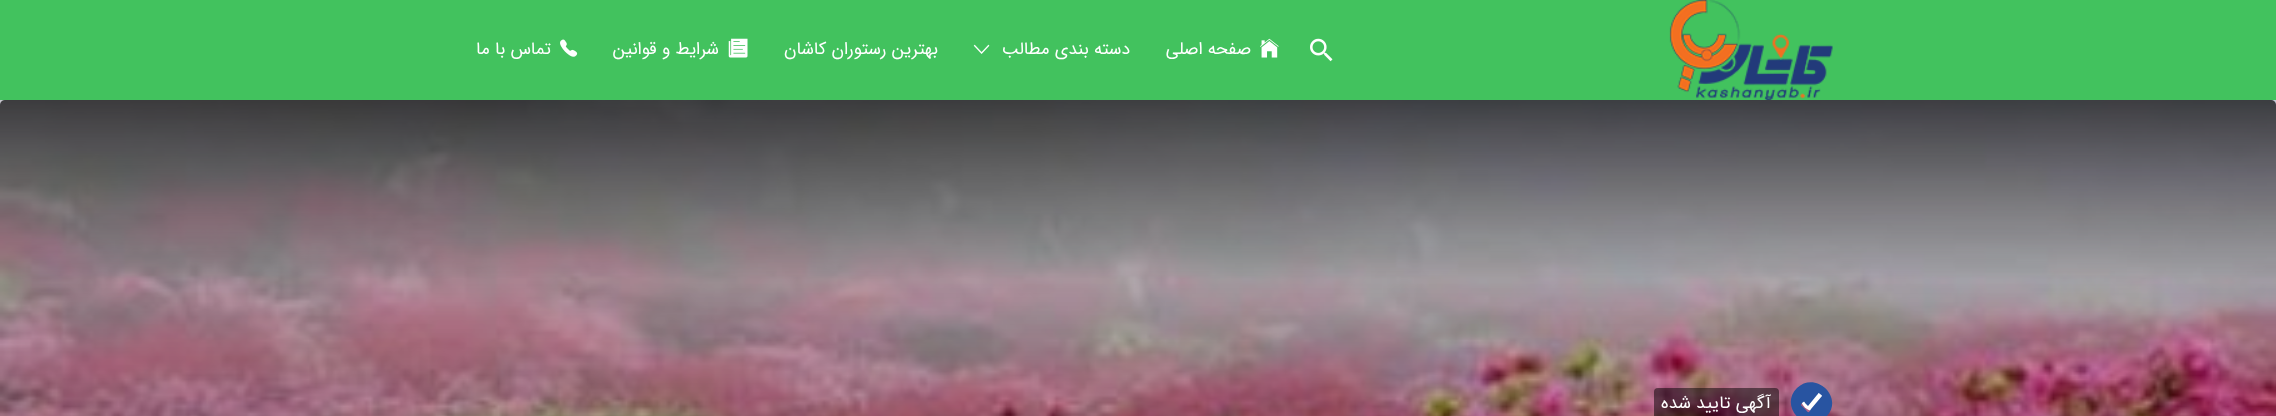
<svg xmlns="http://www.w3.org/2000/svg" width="2276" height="416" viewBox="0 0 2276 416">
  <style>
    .t1 { font: 17.5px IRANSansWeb; direction: rtl; fill: #fff; }
  </style>
  <rect width="100%" height="100%" fill="#fff"/>
  <rect x="0" y="0" width="2276" height="100" fill="#42c25e"/>
  <image x="1669" y="0" width="164" height="100" href="images/1.png"/>
  <image x="1310" y="38" width="23" height="24" href="images/2.png"/>
  <image x="1260" y="38" width="19" height="20" href="images/3.png"/>
  <text x="1251" y="54" class="t1">صفحه اصلی</text>
  <text x="1130" y="54" class="t1">دسته بندی مطالب</text>
  <image x="973" y="44" width="17" height="10" href="images/4.png"/>
  <text x="938" y="54" class="t1">بهترین رستوران کاشان</text>
  <image x="728" y="38" width="20" height="20" href="images/5.png"/>
  <text x="719" y="54" class="t1">شرایط و قوانین</text>
  <image x="560" y="39" width="18" height="18" href="images/6.png"/>
  <text x="551" y="54" class="t1">تماس با ما</text>
  <image x="0" y="100" width="2276" height="316" href="images/7.png"/>
  <circle cx="1813.5" cy="398.5" r="12.5" fill="#fff"/>
  <path d="M1797 388C1816 370 1845 398 1826 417C1807 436 1778 407 1797 388ZM1822 396C1822 395 1821 395 1820 394C1818 392 1819 393 1817 395L1808 406L1805 403C1804 401 1804 402 1802 403C1800 406 1801 405 1804 408C1809 413 1808 414 1811 409Z" fill="#2854a1"/>
  <rect x="1654" y="388" width="125" height="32" rx="4" fill="#00000080"/>
  <text x="1771" y="408" class="t1">آگهی تایید شده</text>
</svg>
